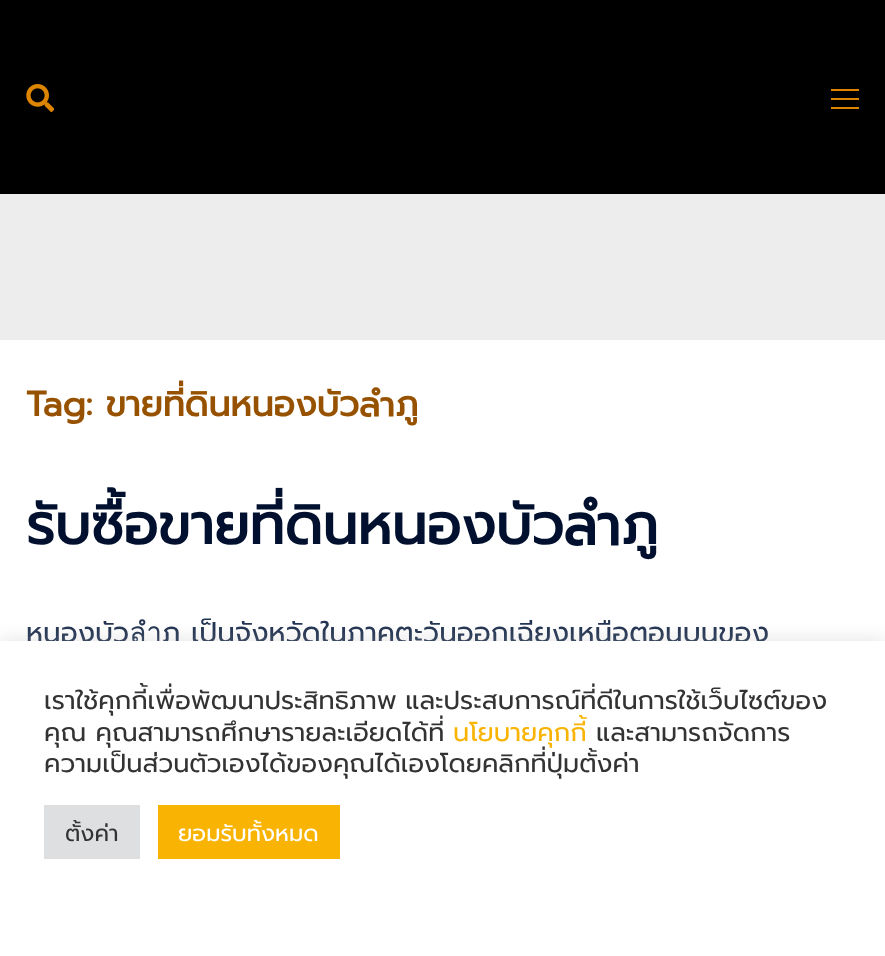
<svg xmlns="http://www.w3.org/2000/svg" width="885" height="956" viewBox="0 0 885 956">
  <style>
    .t1 { font: bold 35px Prompt; fill: #965200; }
    .t2 { font: bold 56px Prompt; fill: #00102e; }
    .t3 { font: 28px Prompt; fill: #233452; }
    .t4 { font: 25.7px Prompt; fill: #333; }
    .t5 { font: 25.7px Prompt; fill: #f9b302; }
    .t6 { font: 22.75px Prompt; fill: #333; }
    .t7 { font: 22.75px Prompt; fill: #fff; }
  </style>
  <rect width="100%" height="100%" fill="#ededed"/>
  <rect x="0" y="0" width="885" height="194" fill="#000"/>
  <image x="26" y="84" width="28" height="28" href="images/1.png"/>
  <rect x="831" y="89" width="28" height="2" fill="#dd8500"/>
  <rect x="831" y="98" width="28" height="2" fill="#dd8500"/>
  <rect x="831" y="107" width="28" height="2" fill="#dd8500"/>
  <rect x="0" y="340" width="885" height="301" fill="#fff"/>
  <text x="26" y="416" class="t1">Tag: ขายที่ดินหนองบัวลำภู</text>
  <text x="26" y="544" class="t2">รับซื้อขายที่ดินหนองบัวลำภู</text>
  <text x="26" y="642" class="t3">หนองบัวลำภู เป็นจังหวัดในภาคตะวันออกเฉียงเหนือตอนบนของ</text>
  <rect x="0" y="639" width="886" height="317" fill="#acabab4d" filter="blur(9px)"/>
  <rect x="0" y="641" width="885" height="315" fill="#fff"/>
  <text x="44" y="709" word-spacing="-1" class="t4">เราใช้คุกกี้เพื่อพัฒนาประสิทธิภาพ และประสบการณ์ที่ดีในการใช้เว็บไซต์ของ</text>
  <text x="44" y="741" class="t4">คุณ คุณสามารถศึกษารายละเอียดได้ที่</text>
  <text x="453" y="741" class="t5">นโยบายคุกกี้</text>
  <text x="596" y="741" class="t4">และสามารถจัดการ</text>
  <text x="44" y="772" class="t4">ความเป็นส่วนตัวเองได้ของคุณได้เองโดยคลิกที่ปุ่มตั้งค่า</text>
  <rect x="44" y="805" width="96" height="54" fill="#dedfe0"/>
  <text x="65" y="841" class="t6">ตั้งค่า</text>
  <rect x="158" y="805" width="182" height="54" fill="#f9b302"/>
  <text x="178" y="841" class="t7">ยอมรับทั้งหมด</text>
</svg>
